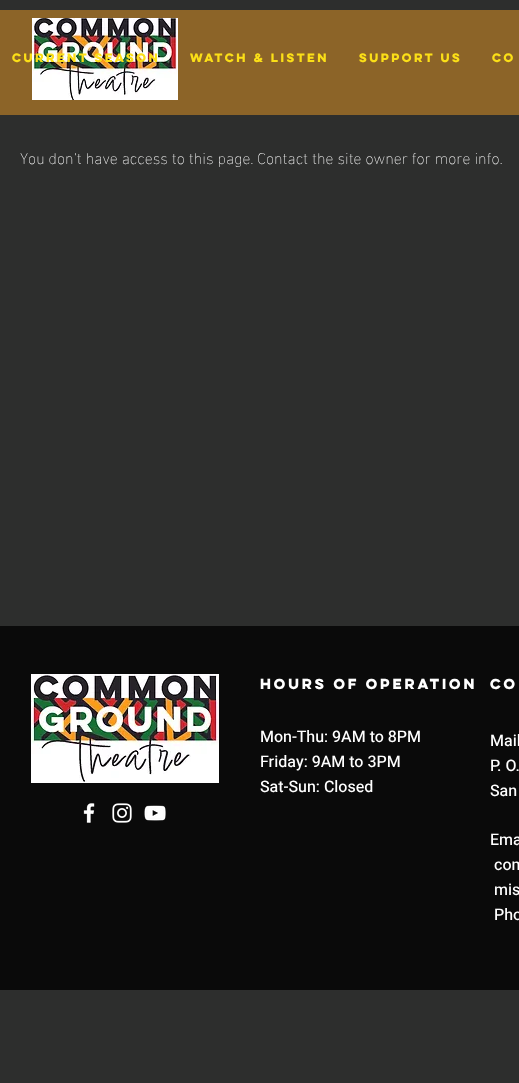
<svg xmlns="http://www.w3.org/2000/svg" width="519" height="1083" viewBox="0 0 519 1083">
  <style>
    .t1 { font: bold 11px 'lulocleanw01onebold'; fill: #fbdf17; }
    .t2 { font: 200 16px 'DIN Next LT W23'; fill: #fff; }
    .t3 { font: bold 13px 'lulocleanw01onebold'; fill: #fff; }
    .t4 { font: 500 16px Heebo; fill: #fff; }
  </style>
  <rect width="100%" height="100%" fill="#2d2e2d"/>
  <rect x="0" y="10" width="519" height="105" fill="#8c6428"/>
  <image x="32" y="18" width="146" height="82" href="images/1.png"/>
  <text x="12" y="62" class="t1">Current Season</text>
  <text x="190" y="62" class="t1">Watch &amp; Listen</text>
  <text x="359" y="62" class="t1">Support Us</text>
  <text x="492" y="62" class="t1">CO</text>
  <text x="20" y="164" class="t2">You don’t have access to this page. Contact the site owner for more info.</text>
  <rect x="0" y="626" width="519" height="364" fill="#0a0a0a"/>
  <image x="31" y="674" width="188" height="109" href="images/2.png"/>
  <image x="83" y="803" width="12" height="20" href="images/3.png"/>
  <image x="112" y="803" width="20" height="20" href="images/4.png"/>
  <image x="144" y="805" width="22" height="16" href="images/5.png"/>
  <text x="260" y="689" class="t3">Hours of operation</text>
  <text x="260" y="742" class="t4">Mon-Thu: 9AM to 8PM</text>
  <text x="260" y="767" class="t4">Friday: 9AM to 3PM</text>
  <text x="260" y="792" class="t4">Sat-Sun: Closed</text>
  <text x="490" y="689" class="t3">co</text>
  <text x="490" y="746" class="t4">Mail</text>
  <text x="490" y="771" class="t4">P. O.</text>
  <text x="490" y="796" class="t4">San</text>
  <text x="490" y="845" class="t4">Ema</text>
  <text x="494" y="870" class="t4">com</text>
  <text x="494" y="895" class="t4">mis</text>
  <text x="494" y="920" class="t4">Pho</text>
</svg>
